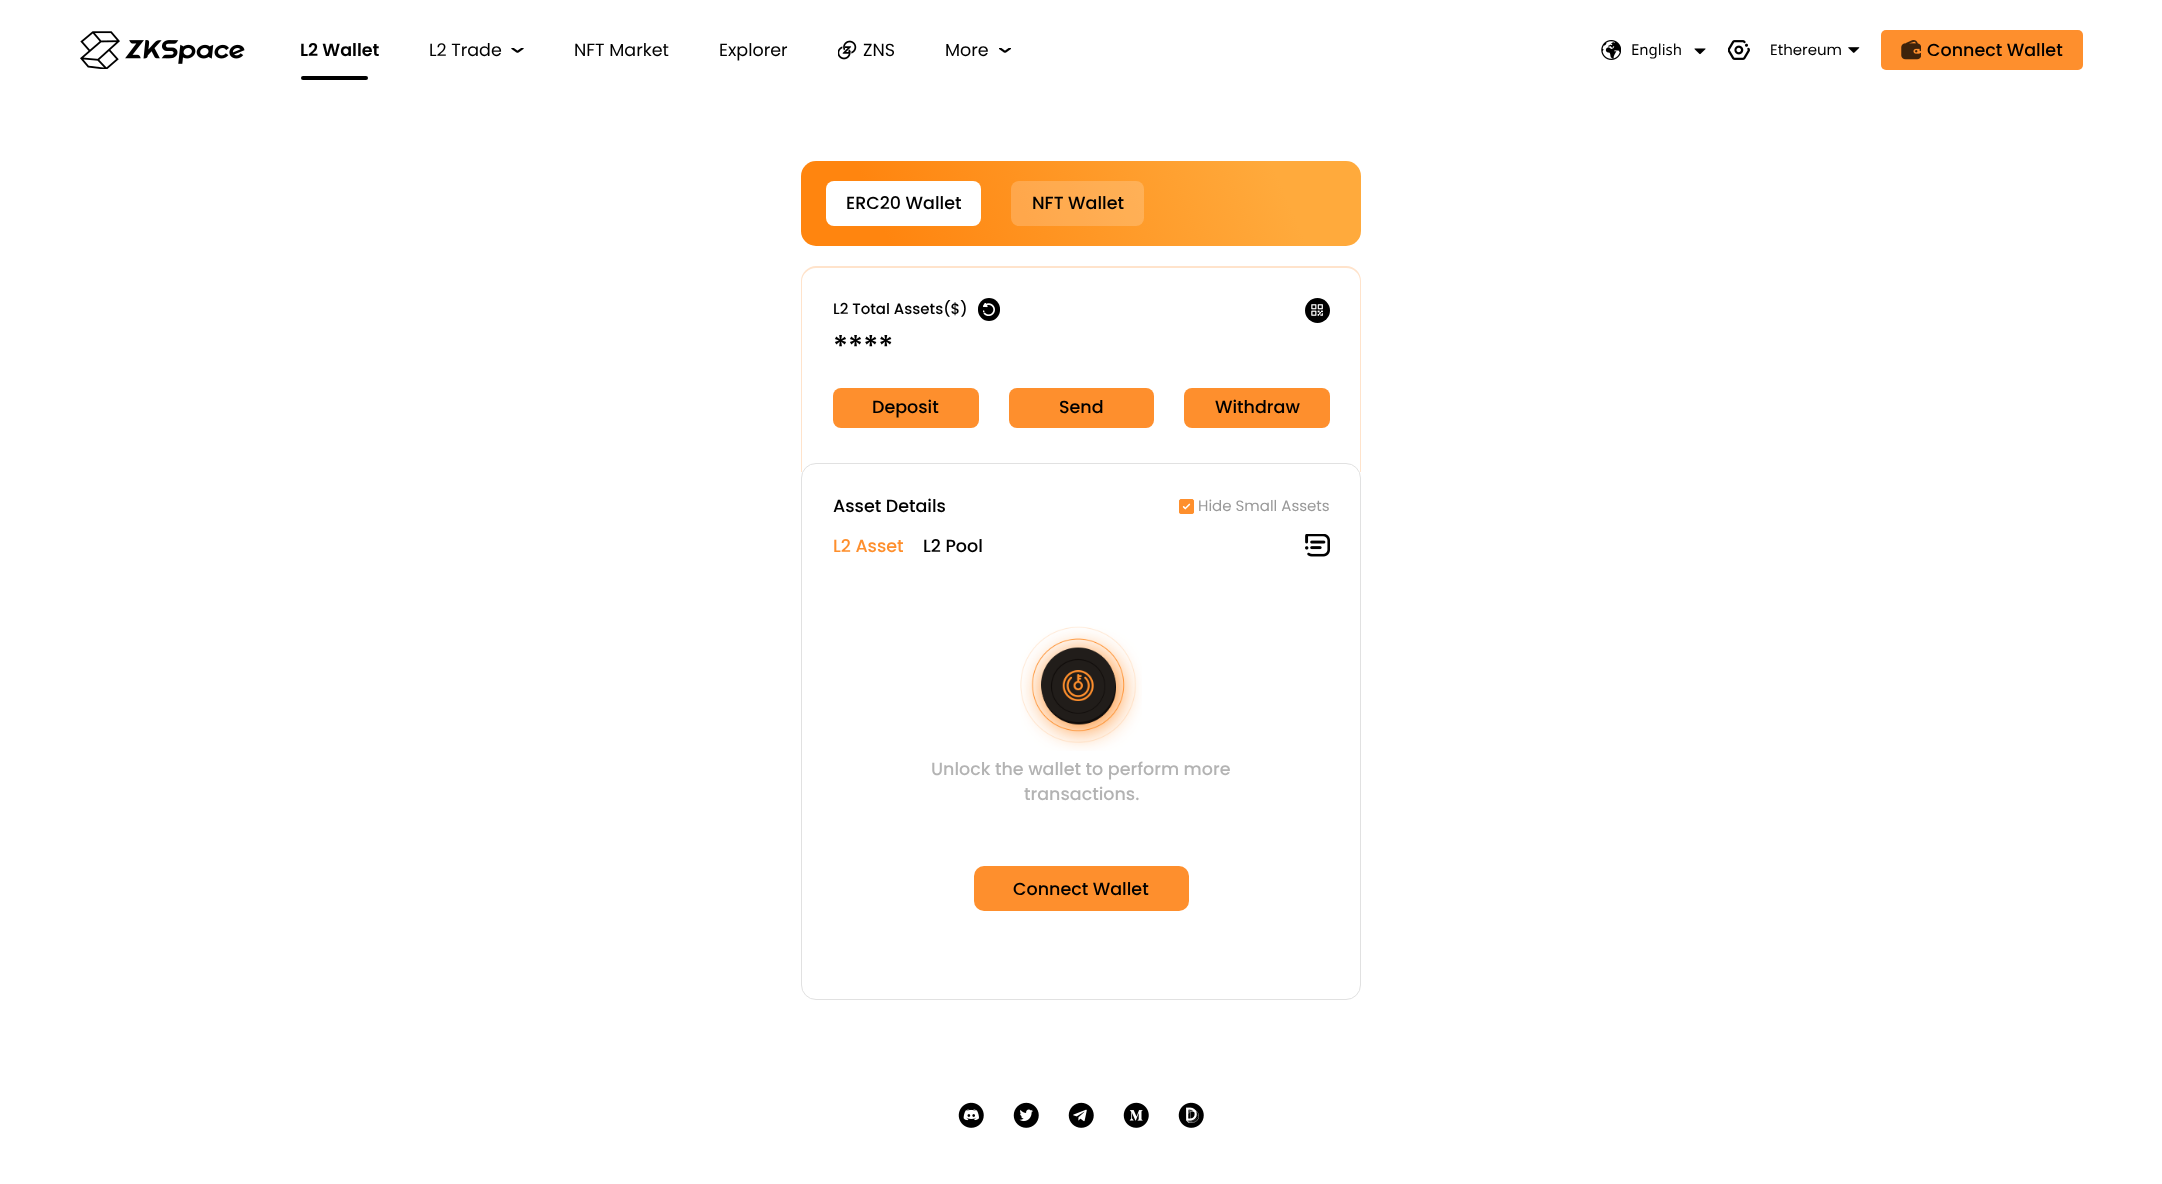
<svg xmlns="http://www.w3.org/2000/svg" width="2162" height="1184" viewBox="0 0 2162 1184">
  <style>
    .t1 { font: 600 17.5px Poppins; fill: #000; }
    .t2 { font: 17.5px Poppins; fill: #000; }
    .t3 { font: 15px Noto Sans; fill: #000; }
    .t4 { font: 15px Poppins; fill: #000; }
    .t5 { font: 500 17.5px Poppins; fill: #000; }
    .t6 { font: 500 15px Poppins; fill: #000; }
    .t7 { font: 500 30px Poppins; fill: #000; }
    .t8 { font: 15px Poppins; fill: #999; }
    .t9 { font: 500 17.5px Poppins; fill: #fe8f2d; }
    .t10 { font: 500 17.5px Poppins; fill: #b3b3b3; }
  </style>
  <defs>
    <linearGradient id="g1" gradientUnits="userSpaceOnUse" x1="829" y1="312" x2="1333" y2="96"><stop offset="0.15" stop-color="#ff850f"/><stop offset="0.85" stop-color="#ffaa3c"/></linearGradient>
  </defs>
  <rect width="100%" height="100%" fill="#fff"/>
  <image x="80" y="31" width="40" height="38" href="images/1.png"/>
  <image x="125" y="40" width="120" height="24" href="images/2.png"/>
  <text x="300" y="56" class="t1">L2 Wallet</text>
  <text x="429" y="56" class="t2">L2 Trade</text>
  <image x="511" y="48" width="13" height="5" href="images/3.png"/>
  <text x="574" y="56" class="t2">NFT Market</text>
  <text x="719" y="56" class="t2">Explorer</text>
  <image x="838" y="40" width="19" height="20" href="images/4.png"/>
  <text x="863" y="56" class="t2">ZNS</text>
  <text x="945" y="56" class="t2">More</text>
  <image x="999" y="48" width="12" height="5" href="images/5.png"/>
  <rect x="301" y="76" width="67" height="4" rx="2" fill="#000"/>
  <image x="1601" y="40" width="20" height="20" href="images/6.png"/>
  <text x="1631" y="55" class="t3">English</text>
  <image x="1694" y="48" width="12" height="7" href="images/7.png"/>
  <image x="1728" y="40" width="22" height="20" href="images/8.png"/>
  <text x="1770" y="55" class="t4">Ethereum</text>
  <image x="1848" y="47" width="12" height="6" href="images/9.png"/>
  <rect x="1881" y="30" width="202" height="40" rx="5" fill="#fe8f2d"/>
  <image x="1901" y="40" width="20" height="20" href="images/10.png"/>
  <text x="1927" y="56" class="t5">Connect Wallet</text>
  <rect x="801" y="161" width="560" height="85" rx="15" fill="url(#g1)"/>
  <rect x="826" y="181" width="155" height="45" rx="8" fill="#fff"/>
  <text x="846" y="209" class="t5">ERC20 Wallet</text>
  <rect x="1011" y="181" width="133" height="45" rx="8" fill="#ffffff33"/>
  <text x="1032" y="209" class="t5">NFT Wallet</text>
  <path d="M816 266H1346C1355 266 1361 273 1361 281V472H801V281C801 273 808 266 816 266ZM816 268H1346C1354 268 1360 274 1360 281V472H802V281C802 274 809 268 816 268Z" fill="#ffe3cb" fill-rule="evenodd"/>
  <text x="833" y="314" class="t6">L2 Total Assets($)</text>
  <rect x="978" y="298" width="22" height="23" rx="11" fill="#000"/>
  <image x="983" y="303" width="12" height="13" href="images/11.png"/>
  <circle cx="1317.5" cy="310.5" r="12.5" fill="#000"/>
  <image x="1311" y="304" width="12" height="12" href="images/12.png"/>
  <text x="833" y="357" class="t7">****</text>
  <rect x="833" y="388" width="146" height="40" rx="8" fill="#fe8f2d"/>
  <text x="872" y="413" class="t5">Deposit</text>
  <rect x="1009" y="388" width="145" height="40" rx="8" fill="#fe8f2d"/>
  <text x="1059" y="413" class="t5">Send</text>
  <rect x="1184" y="388" width="146" height="40" rx="8" fill="#fe8f2d"/>
  <text x="1215" y="413" class="t5">Withdraw</text>
  <rect x="801.5" y="463.5" width="559" height="536" rx="14.5" fill="none" stroke="#e1e1e1"/>
  <text x="833" y="512" class="t5">Asset Details</text>
  <rect x="1179" y="499" width="15" height="15" rx="2.5" fill="#fe8f2d"/>
  <image x="1182" y="503" width="9" height="7" href="images/13.png"/>
  <rect x="1179.5" y="499.5" width="14" height="14" rx="2" fill="none" stroke="#fe8f2d"/>
  <text x="1198" y="511" class="t8">Hide Small Assets</text>
  <text x="833" y="552" class="t9">L2 Asset</text>
  <text x="923" y="552" class="t5">L2 Pool</text>
  <image x="1305" y="534" width="25" height="23" href="images/14.png"/>
  <image x="1020" y="626" width="122" height="125" href="images/15.png"/>
  <text x="931" y="775" class="t10">Unlock the wallet to perform more</text>
  <text x="1024" y="800" class="t10">transactions.</text>
  <rect x="974" y="866" width="215" height="45" rx="10" fill="#fe8f2d"/>
  <text x="1013" y="895" class="t5">Connect Wallet</text>
  <image x="958" y="1102" width="26" height="26" href="images/16.png"/>
  <image x="1013" y="1102" width="26" height="26" href="images/17.png"/>
  <image x="1068" y="1102" width="26" height="26" href="images/18.png"/>
  <image x="1123" y="1102" width="26" height="26" href="images/19.png"/>
  <image x="1178" y="1102" width="26" height="26" href="images/20.png"/>
</svg>
